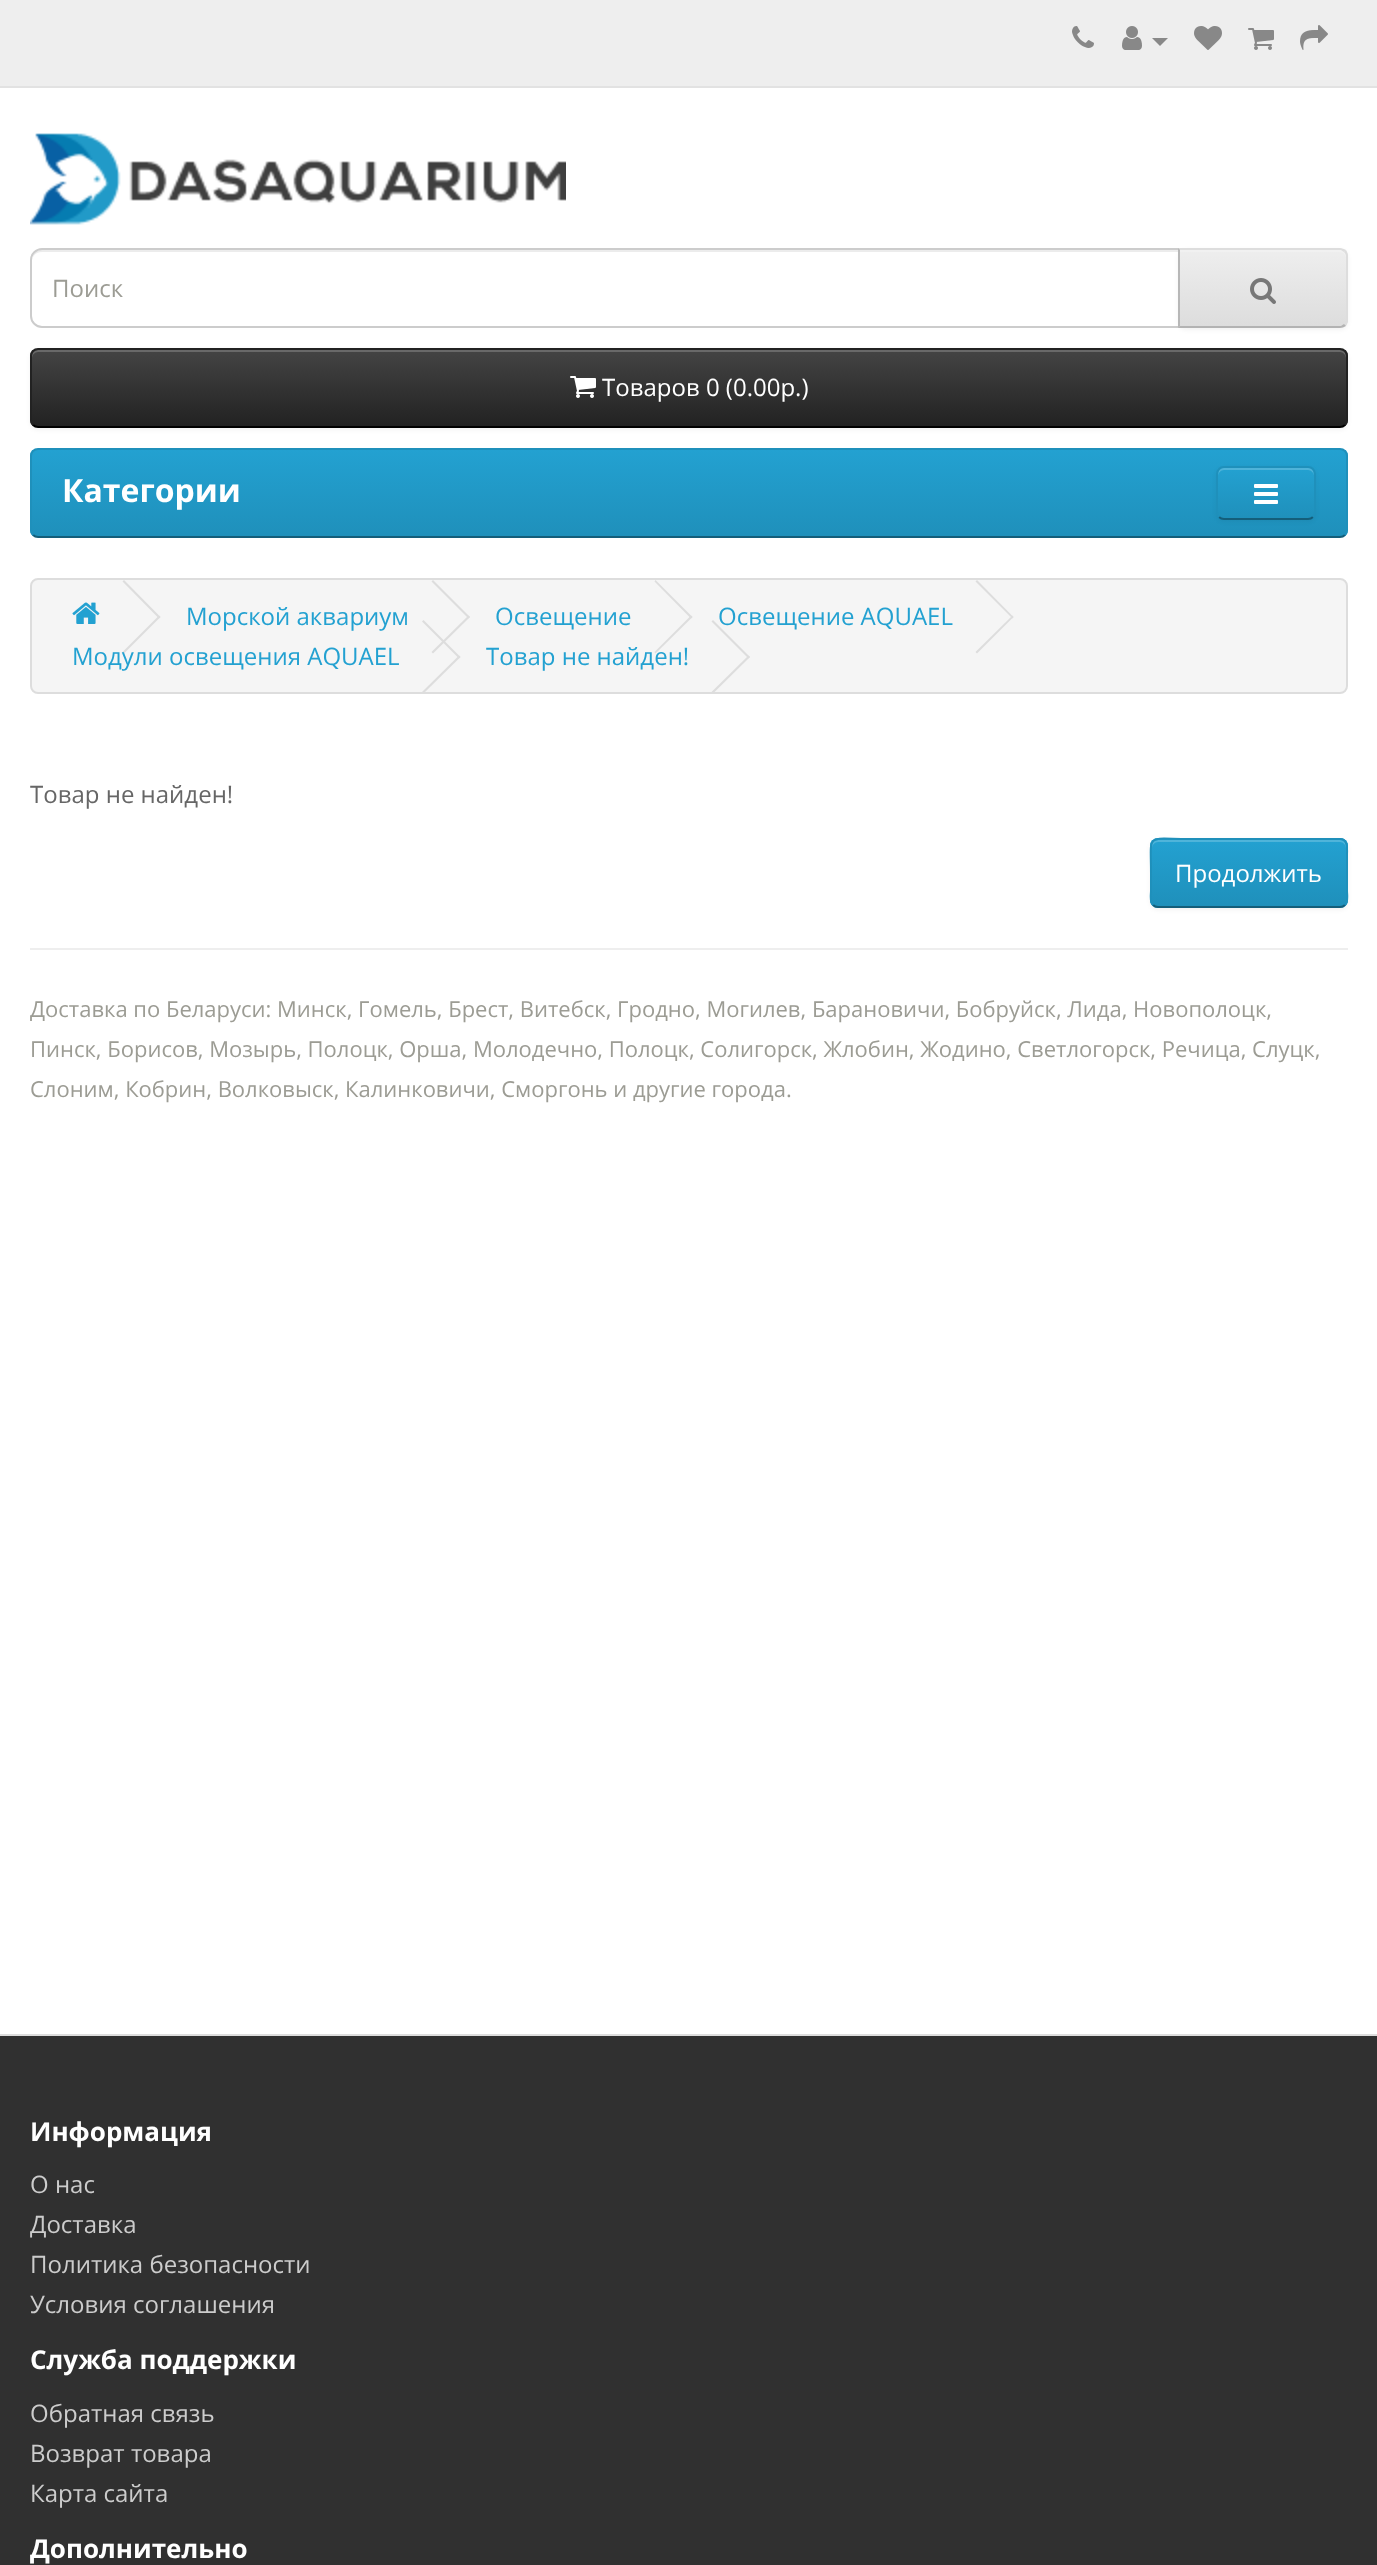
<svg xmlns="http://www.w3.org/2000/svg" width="1377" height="2565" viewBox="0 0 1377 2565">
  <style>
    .t1 { font: 24px Open Sans; fill: #9c9c94; }
    .t2 { font: 24px Open Sans; fill: #fff; }
    .t3 { font: bold 32px Open Sans; fill: #fff; }
    .t4 { font: 24px Open Sans; fill: #23a1d1; }
    .t5 { font: 24px Open Sans; fill: #666; }
    .t6 { font: 22px Open Sans; fill: #9c9c94; }
    .t7 { font: bold 26px Open Sans; fill: #fff; }
    .t8 { font: 24px Open Sans; fill: #ccc; }
  </style>
  <defs>
    <clipPath id="clip1"><path d="M1178 248H1340C1344.5 248 1348 251.5 1348 256V320C1348 324.5 1344.5 328 1340 328H1178Z"/></clipPath>
    <linearGradient id="g1" gradientUnits="userSpaceOnUse" x1="1263" y1="250" x2="1263" y2="326"><stop offset="0" stop-color="#eee"/><stop offset="1" stop-color="#ddd"/></linearGradient>
    <clipPath id="clip2"><rect x="30" y="348" width="1318" height="80" rx="8"/></clipPath>
    <linearGradient id="g2" gradientUnits="userSpaceOnUse" x1="689" y1="350" x2="689" y2="426"><stop offset="0" stop-color="#444"/><stop offset="1" stop-color="#222"/></linearGradient>
    <clipPath id="clip3"><rect x="30" y="448" width="1318" height="90" rx="8"/></clipPath>
    <linearGradient id="g3" gradientUnits="userSpaceOnUse" x1="689" y1="450" x2="689" y2="536"><stop offset="0" stop-color="#23a1d1"/><stop offset="1" stop-color="#1f90bb"/></linearGradient>
    <clipPath id="clip4"><rect x="1216" y="466" width="100" height="54" rx="8"/></clipPath>
    <linearGradient id="g4" gradientUnits="userSpaceOnUse" x1="1266" y1="468" x2="1266" y2="518"><stop offset="0" stop-color="#23a1d1"/><stop offset="1" stop-color="#1f90bb"/></linearGradient>
    <clipPath id="clip5"><rect x="1150" y="838" width="198" height="70" rx="8"/></clipPath>
    <linearGradient id="g5" gradientUnits="userSpaceOnUse" x1="1249" y1="840" x2="1249" y2="906"><stop offset="0" stop-color="#23a1d1"/><stop offset="1" stop-color="#1f90bb"/></linearGradient>
  </defs>
  <rect width="100%" height="100%" fill="#fff"/>
  <rect x="0" y="0" width="1377" height="86" fill="#eee"/>
  <rect x="0" y="86" width="1377" height="2" fill="#e2e2e2"/>
  <image x="1072" y="26" width="22" height="22" href="images/1.png"/>
  <image x="1122" y="26" width="20" height="24" href="images/2.png"/>
  <path d="M1152 38H1168L1160 46Z" fill="#888"/>
  <image x="1194" y="26" width="28" height="24" href="images/3.png"/>
  <image x="1248" y="28" width="26" height="22" href="images/4.png"/>
  <image x="1300" y="25" width="28" height="25" href="images/5.png"/>
  <image x="30" y="133" width="536" height="92" href="images/6.png"/>
  <path d="M42 252H1178V250H42C35 250 32 256 32 262C32 256 36 252 42 252Z" fill="#ececec"/>
  <path d="M42 249H1179V327H42C36 327 31 322 31 316V260C31 254 36 249 42 249Z" fill="none" stroke="#ccc" stroke-width="2"/>
  <text x="52" y="297" class="t1">Поиск</text>
  <rect x="1178" y="250" width="170" height="80" rx="8" fill="#0000000d" filter="blur(2px)"/>
  <g clip-path="url(#clip1)">
    <rect x="1180" y="250" width="168" height="76" fill="url(#g1)"/>
  </g>
  <path d="M1180 252H1340C1343 252 1346 255 1346 258V256C1346 253 1343 250 1340 250H1180Z" fill="#f1f1f1"/>
  <path d="M1178 248L1180 250H1341L1344 252L1346 250C1344 249 1342 248 1340 248Z" fill="#ddd"/>
  <path d="M1348 320V256C1348 254 1347 252 1346 250L1344 252C1345 253 1346 254 1346 256V320C1346 322 1345 323 1344 324L1346 326C1347 324 1348 322 1348 320Z" fill="#ddd"/>
  <path d="M1340 328C1342 328 1344 327 1346 326L1344 324L1341 326H1180L1178 328Z" fill="#b3b3b3"/>
  <path d="M1178 248V328L1180 326V250Z" fill="#b7b7b7"/>
  <image x="1250" y="278" width="26" height="26" href="images/7.png"/>
  <rect x="30" y="350" width="1318" height="80" rx="8" fill="#0000000d" filter="blur(2px)"/>
  <g clip-path="url(#clip2)">
    <rect x="30" y="350" width="1318" height="76" fill="url(#g2)"/>
  </g>
  <path d="M38 352H1340C1343 352 1346 355 1346 358V356C1346 353 1343 350 1340 350H38C35 350 32 353 32 356V358C32 355 35 352 38 352Z" fill="#696969"/>
  <path d="M1345 425C1343.5 426.5 1342 427 1340 427H38C36 427 34.5 426.5 33 425" fill="none" stroke="#000" stroke-width="2"/>
  <path d="M33 425C31.5 423.5 31 422 31 420V356C31 354 31.5 352.5 33 351C34.5 349.5 36 349 38 349H1340C1342 349 1343.5 349.5 1345 351C1346.5 352.5 1347 354 1347 356V420C1347 422 1346.5 423.5 1345 425" fill="none" stroke="#222" stroke-width="2"/>
  <image x="570" y="376" width="26" height="22" href="images/8.png"/>
  <text x="602" y="396" class="t2">Товаров 0 (0.00р.)</text>
  <g clip-path="url(#clip3)">
    <rect x="30" y="450" width="1318" height="86" fill="url(#g3)"/>
  </g>
  <path d="M1345 535C1343.5 536.5 1342 537 1340 537H38C36 537 34.5 536.5 33 535" fill="none" stroke="#145e7a" stroke-width="2"/>
  <path d="M33 535C31.5 533.5 31 532 31 530V456C31 454 31.5 452.5 33 451C34.5 449.5 36 449 38 449H1340C1342 449 1343.5 449.5 1345 451C1346.5 452.5 1347 454 1347 456V530C1347 532 1346.5 533.5 1345 535" fill="none" stroke="#1f90bb" stroke-width="2"/>
  <text x="62" y="502" class="t3">Категории</text>
  <rect x="1216" y="468" width="100" height="54" rx="8" fill="#0000000d" filter="blur(2px)"/>
  <g clip-path="url(#clip4)">
    <rect x="1216" y="468" width="100" height="50" fill="url(#g4)"/>
  </g>
  <path d="M1224 470H1308C1311 470 1314 473 1314 476C1314 464 1303 468 1294 468H1238C1229 468 1218 464 1218 476C1218 473 1221 470 1224 470Z" fill="#ffffff33"/>
  <path d="M1313 517C1311.5 518.5 1310 519 1308 519H1224C1222 519 1220.5 518.5 1219 517" fill="none" stroke="#145e7a" stroke-width="2"/>
  <path d="M1219 517C1217.5 515.5 1217 514 1217 512V474C1217 472 1217.5 470.5 1219 469C1220.5 467.5 1222 467 1224 467H1308C1310 467 1311.5 467.5 1313 469C1314.5 470.5 1315 472 1315 474V512C1315 514 1314.5 515.5 1313 517" fill="none" stroke="#1f90bb" stroke-width="2"/>
  <image x="1254" y="484" width="24" height="20" href="images/9.png"/>
  <rect x="31" y="579" width="1316" height="114" rx="7" fill="#f5f5f5" stroke="#ddd" stroke-width="2"/>
  <image x="72" y="602" width="28" height="22" href="images/10.png"/>
  <path d="M122.5 581.5L124 580L160.5 617L159 618.5Z" fill="#ddd"/>
  <path d="M122.5 652L159 615.5L160.5 617L124 653.5Z" fill="#ddd"/>
  <text x="186" y="625" class="t4">Морской аквариум</text>
  <path d="M431.5 581.5L433 580L470 617L468.5 618.5Z" fill="#ddd"/>
  <path d="M431.5 652L468.5 615.5L470 617L433 653.5Z" fill="#ddd"/>
  <text x="495" y="625" class="t4">Освещение</text>
  <path d="M654.5 581.5L655.5 580L692.5 617L691 618.5Z" fill="#ddd"/>
  <path d="M654.5 652L691 615.5L692.5 617L655.5 653.5Z" fill="#ddd"/>
  <text x="718" y="625" class="t4">Освещение AQUAEL</text>
  <path d="M975.5 581.5L977 580L1013.5 617L1012.5 618.5Z" fill="#ddd"/>
  <path d="M975.5 652L1012.5 615.5L1013.5 617L977 653.5Z" fill="#ddd"/>
  <text x="72" y="665" class="t4">Модули освещения AQUAEL</text>
  <path d="M422 621.5L423.5 620L460.5 657L459 658.5Z" fill="#ddd"/>
  <path d="M422 692L459 655.5L460.5 657L423.5 693.5Z" fill="#ddd"/>
  <text x="486" y="665" class="t4">Товар не найден!</text>
  <path d="M711.5 621.5L713 620L750 657L748.5 658.5Z" fill="#ddd"/>
  <path d="M711.5 692L748.5 655.5L750 657L713 693.5Z" fill="#ddd"/>
  <text x="30" y="803" class="t5">Товар не найден!</text>
  <rect x="1150" y="840" width="198" height="70" rx="8" fill="#0000000d" filter="blur(2px)"/>
  <rect x="1150" y="838" width="198" height="70" rx="8" fill="#229ac8"/>
  <g clip-path="url(#clip5)">
    <rect x="1150" y="840" width="198" height="66" fill="url(#g5)"/>
  </g>
  <path d="M1158 842H1340C1343 842 1346 845 1346 848V846C1346 843 1343 840 1340 840H1158C1155 840 1152 843 1152 846V848C1152 845 1155 842 1158 842Z" fill="#4fb4da"/>
  <path d="M1345 905C1343.5 906.5 1342 907 1340 907H1158C1156 907 1154.5 906.5 1153 905" fill="none" stroke="#145e7a" stroke-width="2"/>
  <path d="M1153 905C1149.5 901.5 1151 895 1151 891V873C1151 832 1145 839 1188.5 839H1340C1348.5 839 1347 849.5 1347 855V891C1347 895 1348.5 901.5 1345 905" fill="none" stroke="#1f90bb" stroke-width="2"/>
  <text x="1175" y="882" class="t2">Продолжить</text>
  <rect x="30" y="948" width="1318" height="2" fill="#eee"/>
  <text x="30" y="1017" class="t6">Доставка по Беларуси: Минск, Гомель, Брест, Витебск, Гродно, Могилев, Барановичи, Бобруйск, Лида, Новополоцк,</text>
  <text x="30" y="1057" class="t6">Пинск, Борисов, Мозырь, Полоцк, Орша, Молодечно, Полоцк, Солигорск, Жлобин, Жодино, Светлогорск, Речица, Слуцк,</text>
  <text x="30" y="1097" class="t6">Слоним, Кобрин, Волковыск, Калинковичи, Сморгонь и другие города.</text>
  <rect x="0" y="2036" width="1377" height="529" fill="#303030"/>
  <rect x="0" y="2034" width="1377" height="2" fill="#ddd"/>
  <text x="30" y="2141" class="t7">Информация</text>
  <text x="30" y="2193" class="t8">О нас</text>
  <text x="30" y="2233" class="t8">Доставка</text>
  <text x="30" y="2273" class="t8">Политика безопасности</text>
  <text x="30" y="2313" class="t8">Условия соглашения</text>
  <text x="30" y="2369" class="t7">Служба поддержки</text>
  <text x="30" y="2422" class="t8">Обратная связь</text>
  <text x="30" y="2462" class="t8">Возврат товара</text>
  <text x="30" y="2502" class="t8">Карта сайта</text>
  <text x="30" y="2558" class="t7">Дополнительно</text>
</svg>
